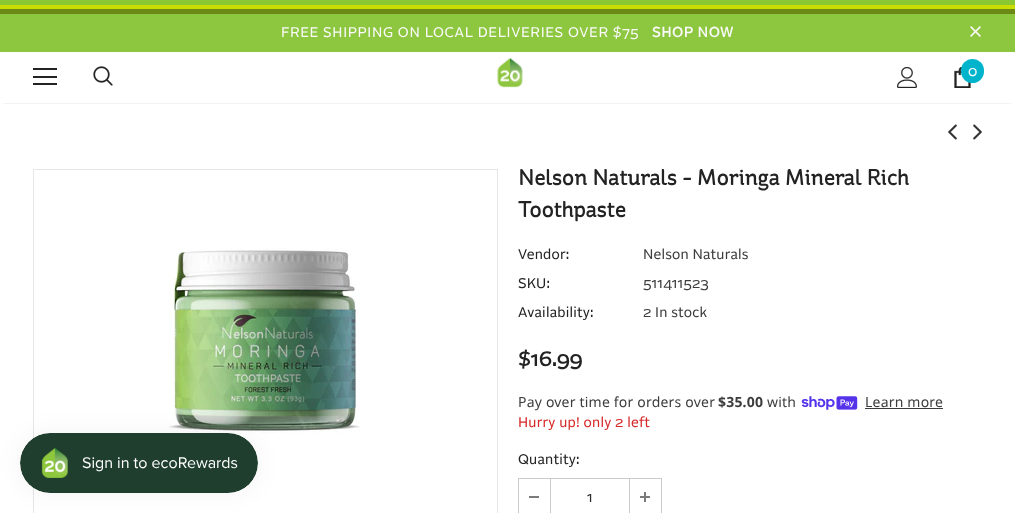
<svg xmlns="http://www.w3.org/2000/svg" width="1015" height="513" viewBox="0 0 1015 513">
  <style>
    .t1 { font: 14px 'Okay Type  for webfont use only'; letter-spacing: 0.7px; fill: #fafafa; }
    .t2 { font: bold 14px 'Okay Type  for webfont use only'; letter-spacing: 0.7px; fill: #fafafa; }
    .t3 { font: 14px 'Okay Type  for webfont use only'; fill: #fafafa; }
    .t4 { font: bold 22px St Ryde; fill: #232323; }
    .t5 { font: 14px 'Okay Type  for webfont use only'; letter-spacing: 0.2px; fill: #232323; }
    .t6 { font: 14px 'Okay Type  for webfont use only'; letter-spacing: 0.2px; fill: #3c3c3c; }
    .t7 { font: bold 20px 'Okay Type  for webfont use only'; letter-spacing: 0.2px; fill: #232323; }
    .t8 { font: 14px Noto Sans; letter-spacing: 0.2px; fill: #3c3c3c; }
    .t9 { font: bold 14px Noto Sans; letter-spacing: 0.2px; fill: #3c3c3c; }
    .t10 { font: 14px 'Okay Type  for webfont use only'; letter-spacing: 0.2px; fill: #d62828; }
    .t11 { font: 14px 'Okay Type  for webfont use only'; fill: #2d2d2d; }
  </style>
  <defs>
    <clipPath id="clip1"><rect x="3" y="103" width="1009" height="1"/></clipPath>
  </defs>
  <rect width="100%" height="100%" fill="#fff"/>
  <rect x="0" y="0" width="1015" height="5" fill="#8bc732"/>
  <rect x="0" y="5" width="1015" height="4" fill="#cadc00"/>
  <rect x="0" y="9" width="1015" height="5" fill="#6b8914"/>
  <rect x="0" y="14" width="1015" height="38" fill="#8dc63f"/>
  <text x="281" y="37" class="t1">FREE SHIPPING ON LOCAL DELIVERIES OVER $75</text>
  <text x="652" y="37" class="t2">SHOP NOW</text>
  <image x="970" y="26" width="11" height="11" href="images/1.png"/>
  <g clip-path="url(#clip1)">
    <rect x="3" y="58" width="1009" height="45" fill="#0000001f" filter="blur(1.5px)"/>
  </g>
  <rect x="33" y="68" width="24" height="2" fill="#232323"/>
  <rect x="33" y="76" width="24" height="2" fill="#232323"/>
  <rect x="33" y="83" width="24" height="2" fill="#232323"/>
  <image x="93" y="66" width="20" height="20" href="images/2.png"/>
  <image x="497" y="57" width="26" height="31" href="images/3.png"/>
  <image x="897" y="67" width="20" height="21" href="images/4.png"/>
  <image x="954" y="67" width="17" height="21" href="images/5.png"/>
  <rect x="961" y="59" width="23" height="24" rx="11.5" fill="#00b5cb"/>
  <text x="968" y="76" class="t3">0</text>
  <rect x="33.5" y="169.5" width="464" height="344" fill="none" stroke="#e6e6e6"/>
  <image x="169" y="248" width="191" height="186" href="images/9.png"/>
  <rect x="20" y="433" width="238" height="60" rx="30" fill="#0000000d" filter="blur(12.5px)"/>
  <image x="20" y="433" width="238" height="60" href="images/6.png"/>
  <image x="948" y="124" width="9" height="16" href="images/7.png"/>
  <image x="973" y="124" width="9" height="16" href="images/8.png"/>
  <text x="518" y="185" class="t4">Nelson Naturals - Moringa Mineral Rich</text>
  <text x="518" y="217" class="t4">Toothpaste</text>
  <text x="518" y="259" class="t5">Vendor:</text>
  <text x="643" y="259" class="t6">Nelson Naturals</text>
  <text x="518" y="288" class="t5">SKU:</text>
  <text x="643" y="288" class="t6">511411523</text>
  <text x="518" y="317" class="t5">Availability:</text>
  <text x="643" y="317" class="t6">2 In stock</text>
  <text x="518" y="366" class="t7">$16.99</text>
  <text x="518" y="407" class="t8">Pay over time for orders over</text>
  <text x="718" y="407" class="t9">$35.00</text>
  <text x="767" y="407" class="t8">with</text>
  <image x="801" y="396" width="57" height="14" href="images/10.png"/>
  <text x="865" y="407" class="t8">Learn more</text>
  <rect x="865" y="408" width="78" height="1" fill="#3c3c3c"/>
  <text x="518" y="427" class="t10">Hurry up! only 2 left</text>
  <text x="518" y="464" class="t5">Quantity:</text>
  <rect x="518.5" y="478.5" width="143" height="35" fill="none" stroke="#cbcbcb"/>
  <rect x="550" y="479" width="1" height="34" fill="#cbcbcb"/>
  <rect x="529" y="496" width="10" height="2" fill="#7b7b7b"/>
  <text x="587" y="502" class="t11">1</text>
  <rect x="629" y="479" width="1" height="34" fill="#cbcbcb"/>
  <rect x="640" y="496" width="10" height="2" fill="#7b7b7b"/>
  <rect x="644" y="492" width="2" height="10" fill="#7b7b7b"/>
</svg>
